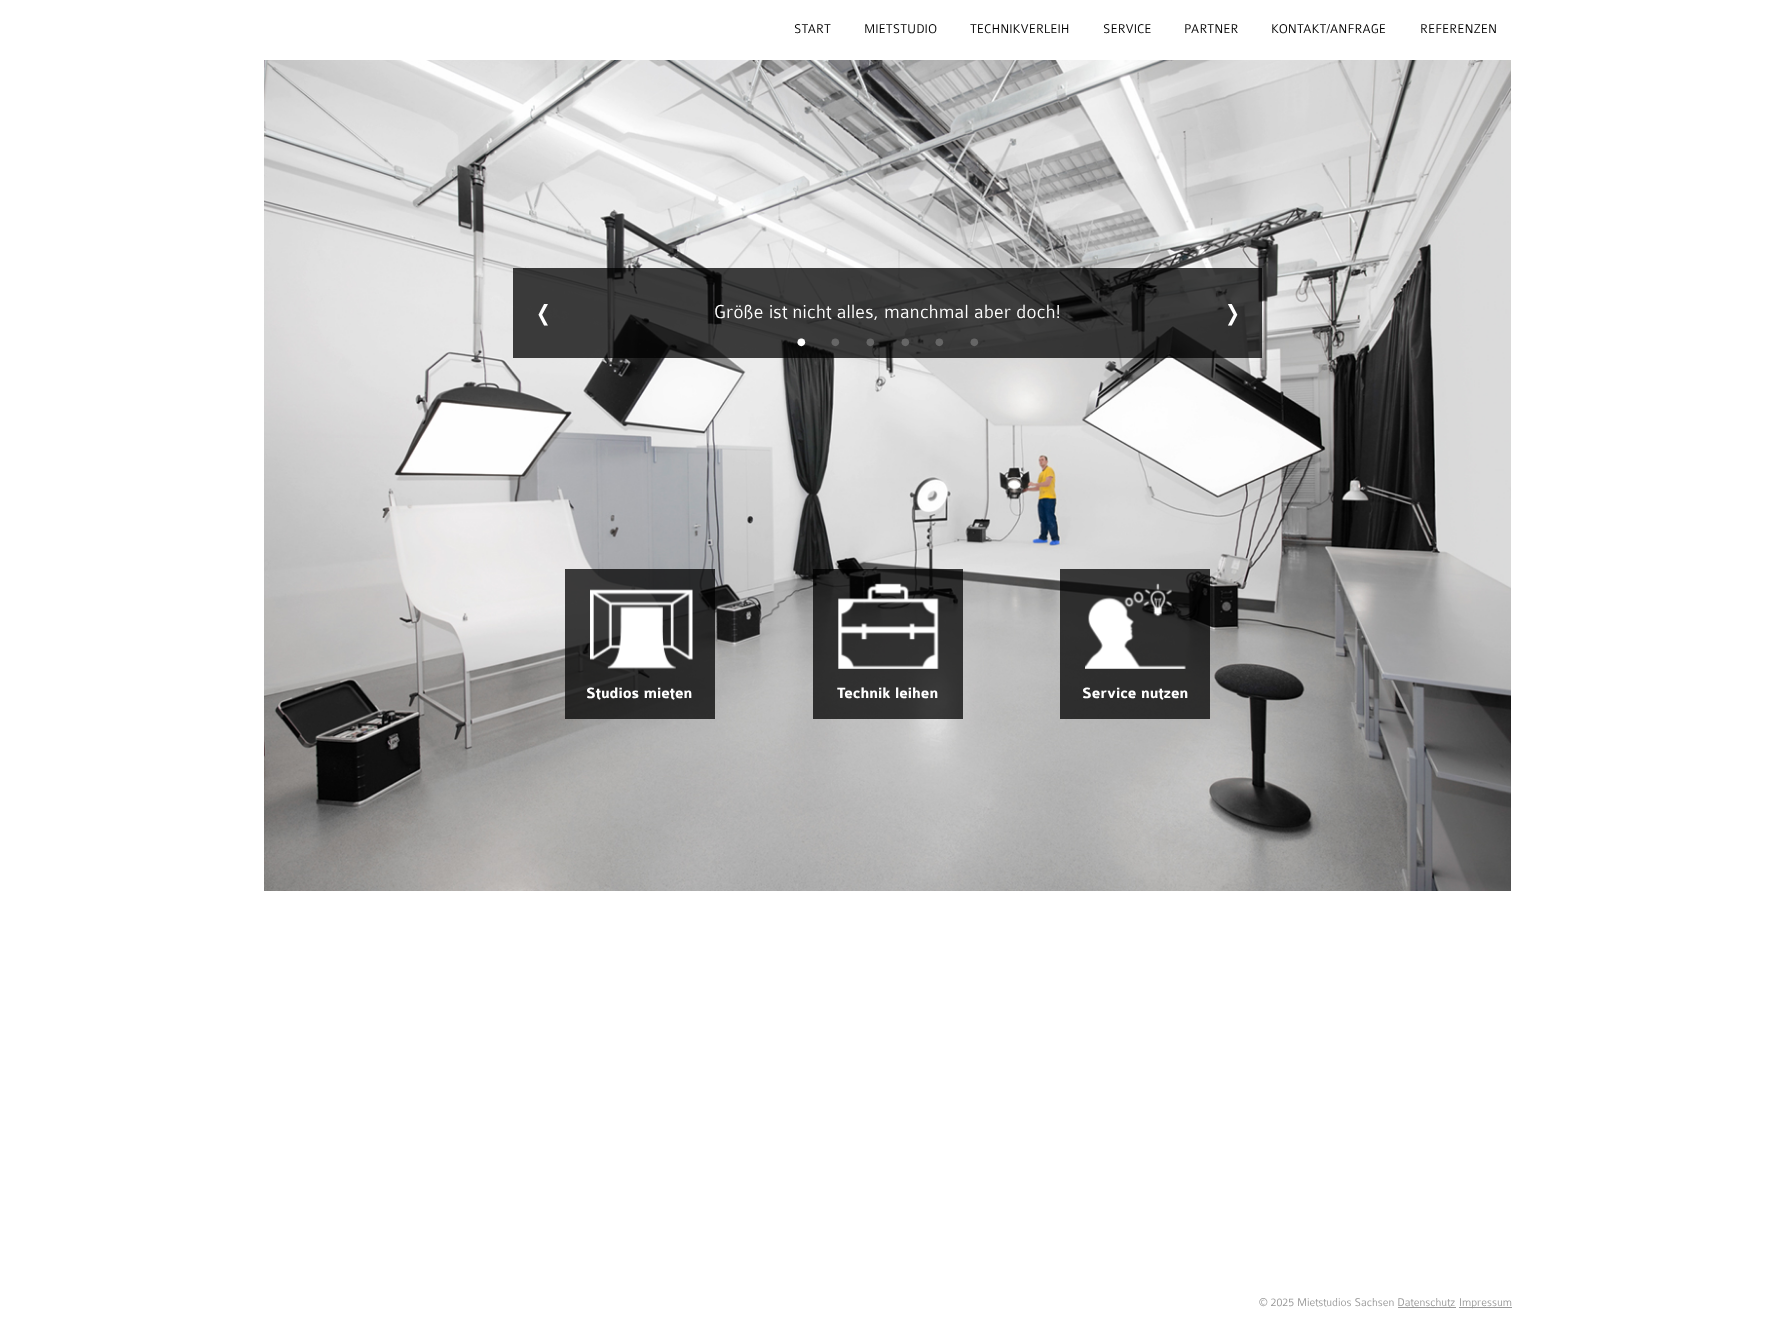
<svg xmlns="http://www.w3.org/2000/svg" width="1775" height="1329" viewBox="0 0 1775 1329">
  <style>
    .t1 { font: 300 13.5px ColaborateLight; fill: #000; }
    .t2 { font: 300 60px ColaborateLight; fill: #fff; }
    .t3 { font: 300 20px ColaborateLight; letter-spacing: 0.3px; fill: #fff; }
    .t4 { font: 300 30px ColaborateLight; fill: #fff; }
    .t5 { font: 300 30px ColaborateLight; fill: #666; }
    .t6 { font: bold 16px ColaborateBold; fill: #fff; }
    .t7 { font: 300 12px ColaborateLight; fill: #999; }
  </style>
  <rect width="100%" height="100%" fill="#fff"/>
  <text x="794" y="33" class="t1">START</text>
  <text x="864" y="33" class="t1">MIETSTUDIO</text>
  <text x="970" y="33" class="t1">TECHNIKVERLEIH</text>
  <text x="1103" y="33" class="t1">SERVICE</text>
  <text x="1184" y="33" class="t1">PARTNER</text>
  <text x="1271" y="33" class="t1">KONTAKT/ANFRAGE</text>
  <text x="1420" y="33" class="t1">REFERENZEN</text>
  <image x="264" y="60" width="1247" height="831" href="images/1.png"/>
  <rect x="513" y="268" width="749" height="90" fill="#000000bf"/>
  <text x="536" y="331" class="t2">‹</text>
  <text x="1225" y="331" class="t2">›</text>
  <text x="714" y="318" class="t3">Größe ist nicht alles, manchmal aber doch!</text>
  <text x="794" y="352" class="t4">•</text>
  <text x="828" y="352" class="t5">•</text>
  <text x="863" y="352" class="t5">•</text>
  <text x="898" y="352" class="t5">•</text>
  <text x="932" y="352" class="t5">•</text>
  <text x="967" y="352" class="t5">•</text>
  <rect x="565" y="569" width="150" height="150" fill="#000000bf"/>
  <image x="590" y="589" width="103" height="80" href="images/2.png"/>
  <text x="586" y="698" class="t6">Studios mieten</text>
  <rect x="813" y="569" width="150" height="150" fill="#000000bf"/>
  <image x="838" y="583" width="101" height="86" href="images/3.png"/>
  <text x="837" y="698" class="t6">Technik leihen</text>
  <rect x="1060" y="569" width="150" height="150" fill="#000000bf"/>
  <image x="1085" y="583" width="101" height="86" href="images/4.png"/>
  <text x="1082" y="698" class="t6">Service nutzen</text>
  <text x="1259" y="1306" class="t7">© 2025 Mietstudios Sachsen Datenschutz</text>
  <rect x="1459" y="1307" width="53" height="1" fill="#999"/>
  <text x="1459" y="1306" class="t7">Impressum</text>
  <rect x="1398" y="1307" width="58" height="1" fill="#999"/>
</svg>
